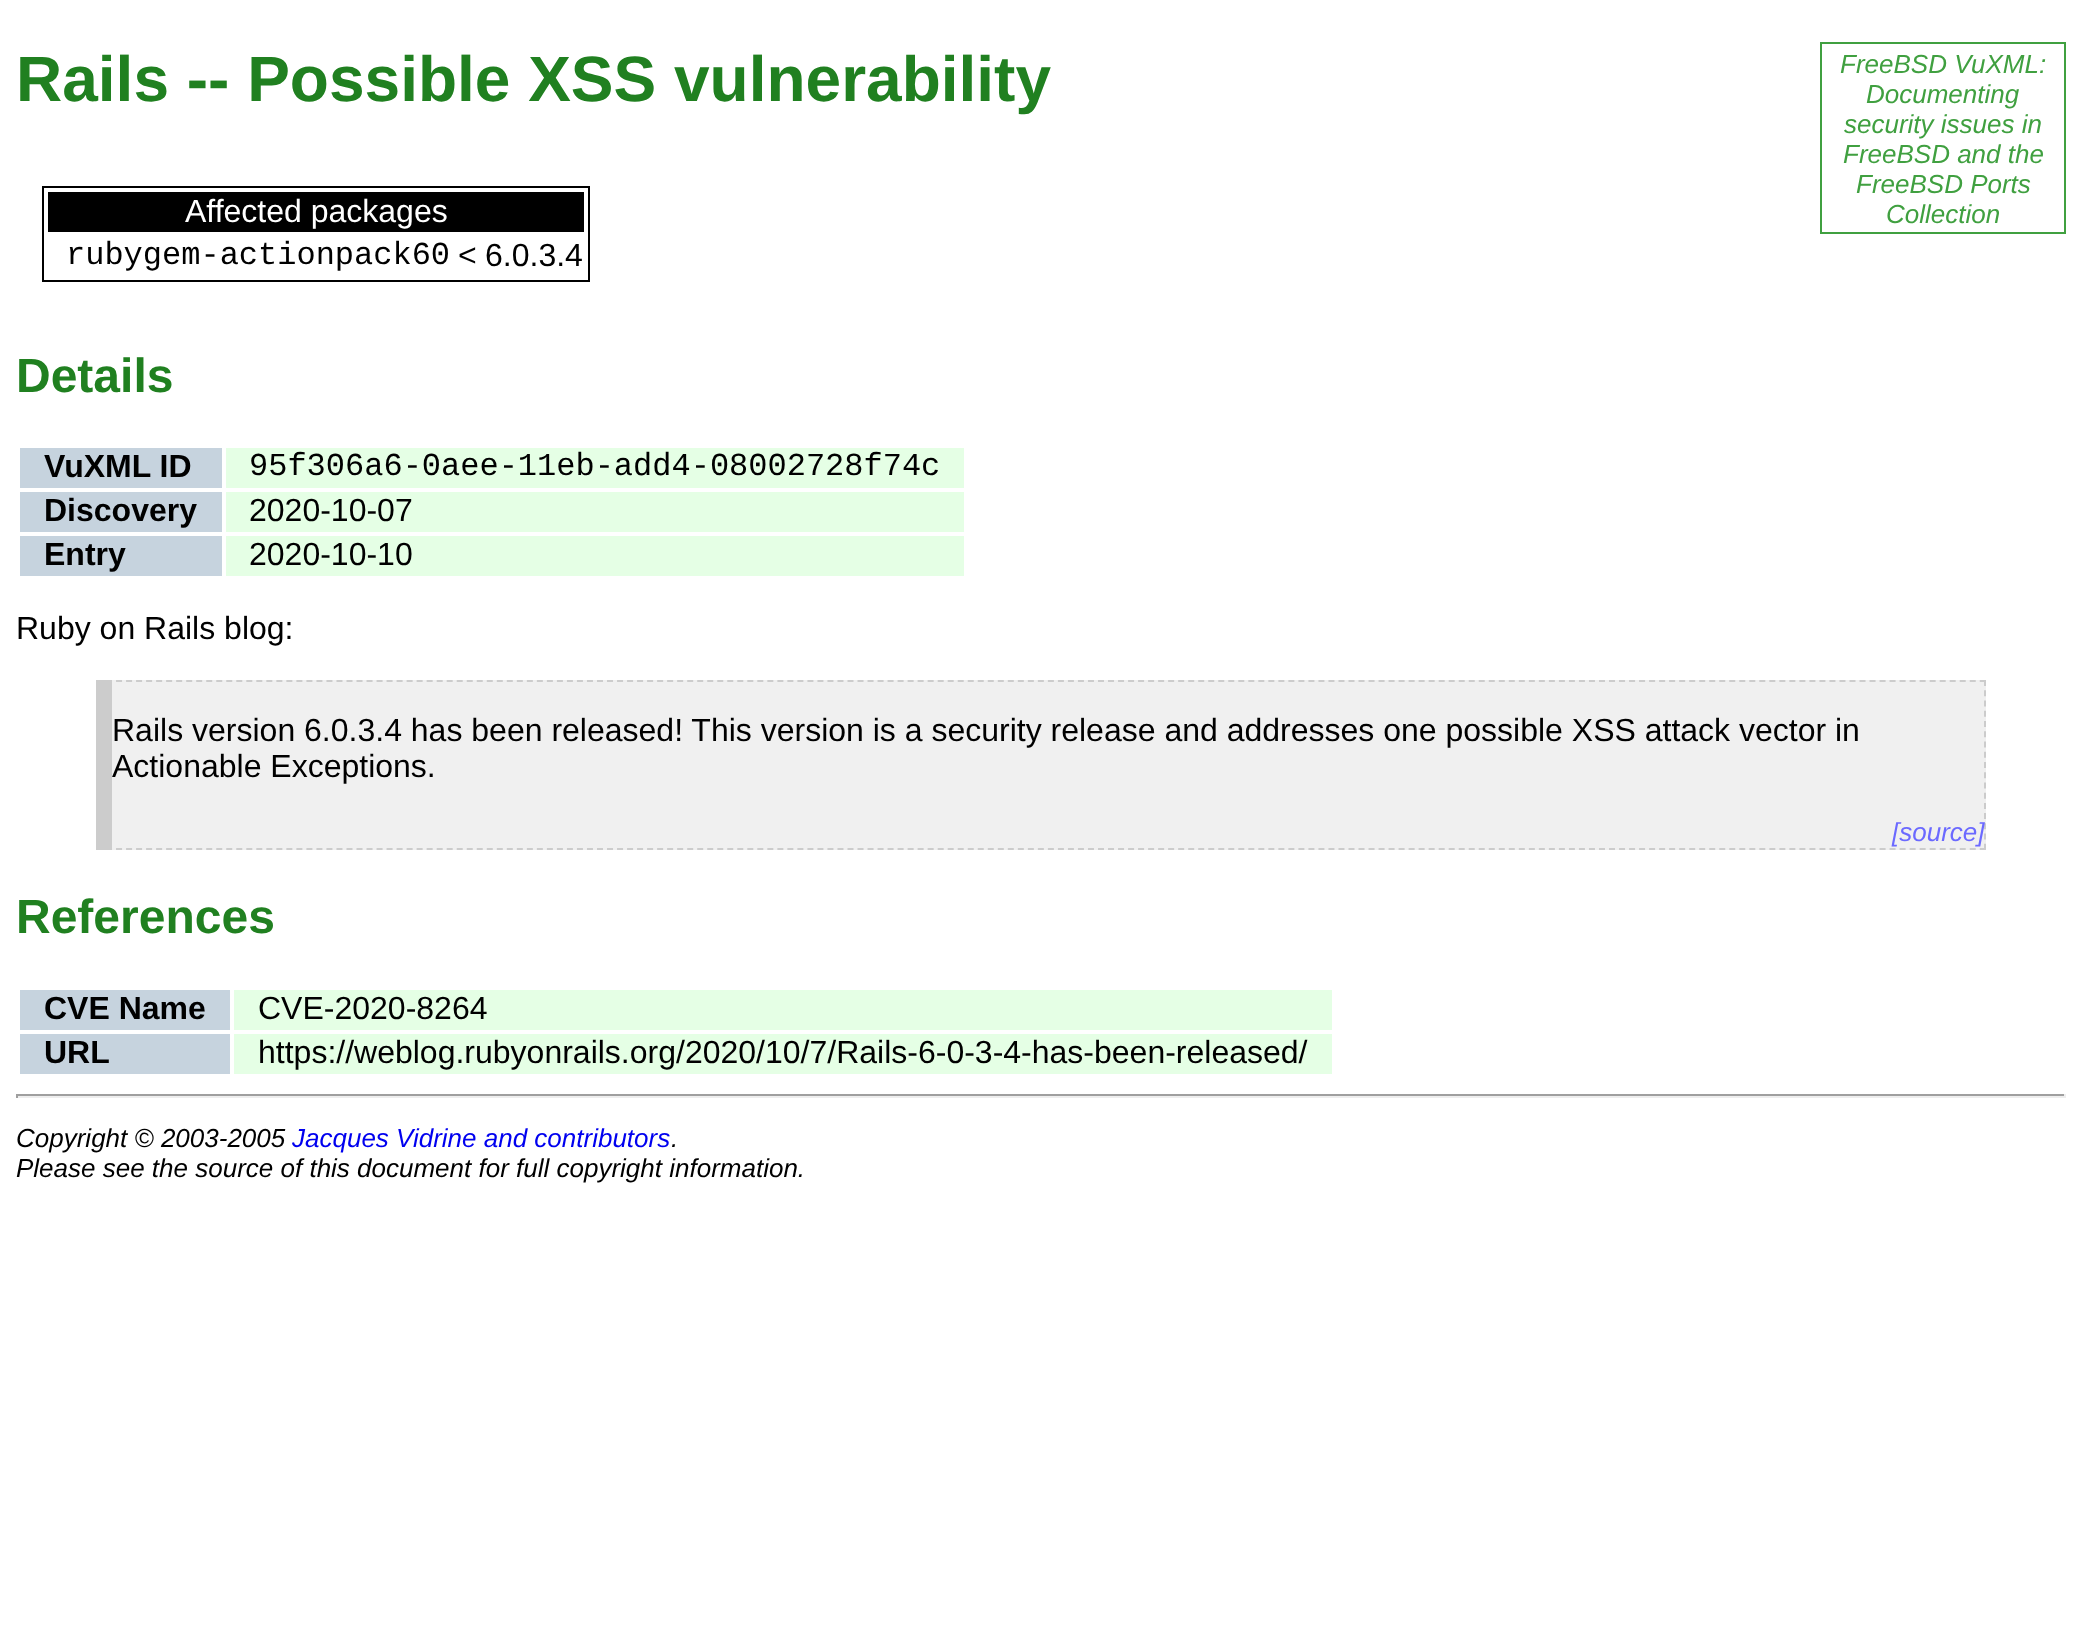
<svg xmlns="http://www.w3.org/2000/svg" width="2082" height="1632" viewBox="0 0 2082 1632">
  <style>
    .t1 { font: bold 64px Liberation Sans; fill: #208020; }
    .t2 { font: italic 26px Liberation Sans; fill: #40a040; }
    .t3 { font: 32px Liberation Sans; fill: #fff; }
    .t4 { font: 32px Liberation Mono; fill: #000; }
    .t5 { font: 32px Liberation Sans; fill: #000; }
    .t6 { font: bold 48px Liberation Sans; fill: #208020; }
    .t7 { font: bold 32px Liberation Sans; fill: #000; }
    .t8 { font: italic 26px Liberation Sans; fill: #6b69ff; }
    .t9 { font: italic 26px Liberation Sans; fill: #000; }
    .t10 { font: italic 26px Liberation Sans; fill: #0000ef; }
  </style>
  <rect width="100%" height="100%" fill="#fff"/>
  <text x="16" y="101" class="t1">Rails -- Possible XSS vulnerability</text>
  <rect x="1821" y="43" width="244" height="190" fill="none" stroke="#40a040" stroke-width="2"/>
  <text x="1840" y="73" class="t2">FreeBSD VuXML:</text>
  <text x="1866" y="103" class="t2">Documenting</text>
  <text x="1844" y="133" class="t2">security issues in</text>
  <text x="1843" y="163" class="t2">FreeBSD and the</text>
  <text x="1856" y="193" class="t2">FreeBSD Ports</text>
  <text x="1886" y="223" class="t2">Collection</text>
  <rect x="43" y="187" width="546" height="94" fill="none" stroke="#000" stroke-width="2"/>
  <rect x="48" y="192" width="536" height="40" fill="#000"/>
  <text x="185" y="222" class="t3">Affected packages</text>
  <text x="66" y="264" class="t4">rubygem-actionpack60</text>
  <text x="458" y="266" class="t5">&lt;</text>
  <text x="485" y="266" class="t5">6.0.3.4</text>
  <text x="16" y="392" class="t6">Details</text>
  <rect x="20" y="448" width="202" height="40" fill="#c6d3de"/>
  <text x="44" y="477" class="t7">VuXML ID</text>
  <rect x="226" y="448" width="738" height="40" fill="#e5ffe5"/>
  <text x="249" y="475" class="t4">95f306a6-0aee-11eb-add4-08002728f74c</text>
  <rect x="20" y="492" width="202" height="40" fill="#c6d3de"/>
  <text x="44" y="521" class="t7">Discovery</text>
  <rect x="226" y="492" width="738" height="40" fill="#e5ffe5"/>
  <text x="249" y="521" class="t5">2020-10-07</text>
  <rect x="20" y="536" width="202" height="40" fill="#c6d3de"/>
  <text x="44" y="565" class="t7">Entry</text>
  <rect x="226" y="536" width="738" height="40" fill="#e5ffe5"/>
  <text x="249" y="565" class="t5">2020-10-10</text>
  <text x="16" y="639" class="t5">Ruby on Rails blog:</text>
  <rect x="112" y="680" width="1874" height="170" fill="#f0f0f0"/>
  <path d="M96 681H1986" fill="none" stroke="#ccc" stroke-width="2" stroke-dasharray="6 4.02"/>
  <path d="M1985 680V850" fill="none" stroke="#ccc" stroke-width="2" stroke-dasharray="6 4.24"/>
  <path d="M96 849H1986" fill="none" stroke="#ccc" stroke-width="2" stroke-dasharray="6 4.02"/>
  <rect x="96" y="680" width="16" height="170" fill="#ccc"/>
  <text x="112" y="741" class="t5">Rails version 6.0.3.4 has been released! This version is a security release and addresses one possible XSS attack vector in</text>
  <text x="112" y="777" class="t5">Actionable Exceptions.</text>
  <text x="1892" y="841" class="t8">[source]</text>
  <text x="16" y="933" class="t6">References</text>
  <rect x="20" y="990" width="210" height="40" fill="#c6d3de"/>
  <text x="44" y="1019" class="t7">CVE Name</text>
  <rect x="234" y="990" width="1098" height="40" fill="#e5ffe5"/>
  <text x="258" y="1019" class="t5">CVE-2020-8264</text>
  <rect x="20" y="1034" width="210" height="40" fill="#c6d3de"/>
  <text x="44" y="1063" class="t7">URL</text>
  <rect x="234" y="1034" width="1098" height="40" fill="#e5ffe5"/>
  <text x="258" y="1063" class="t5">https://weblog.rubyonrails.org/2020/10/7/Rails-6-0-3-4-has-been-released/</text>
  <rect x="16" y="1094" width="2050" height="2" fill="#9f9f9f"/>
  <rect x="2064" y="1094" width="2" height="4" fill="#eee"/>
  <rect x="16" y="1096" width="2050" height="2" fill="#eee"/>
  <rect x="16" y="1094" width="2" height="4" fill="#9f9f9f"/>
  <text x="16" y="1147" class="t9">Copyright © 2003-2005</text>
  <text x="292" y="1147" class="t10">Jacques Vidrine and contributors</text>
  <text x="671" y="1147" class="t9">.</text>
  <text x="16" y="1177" class="t9">Please see the source of this document for full copyright information.</text>
</svg>
